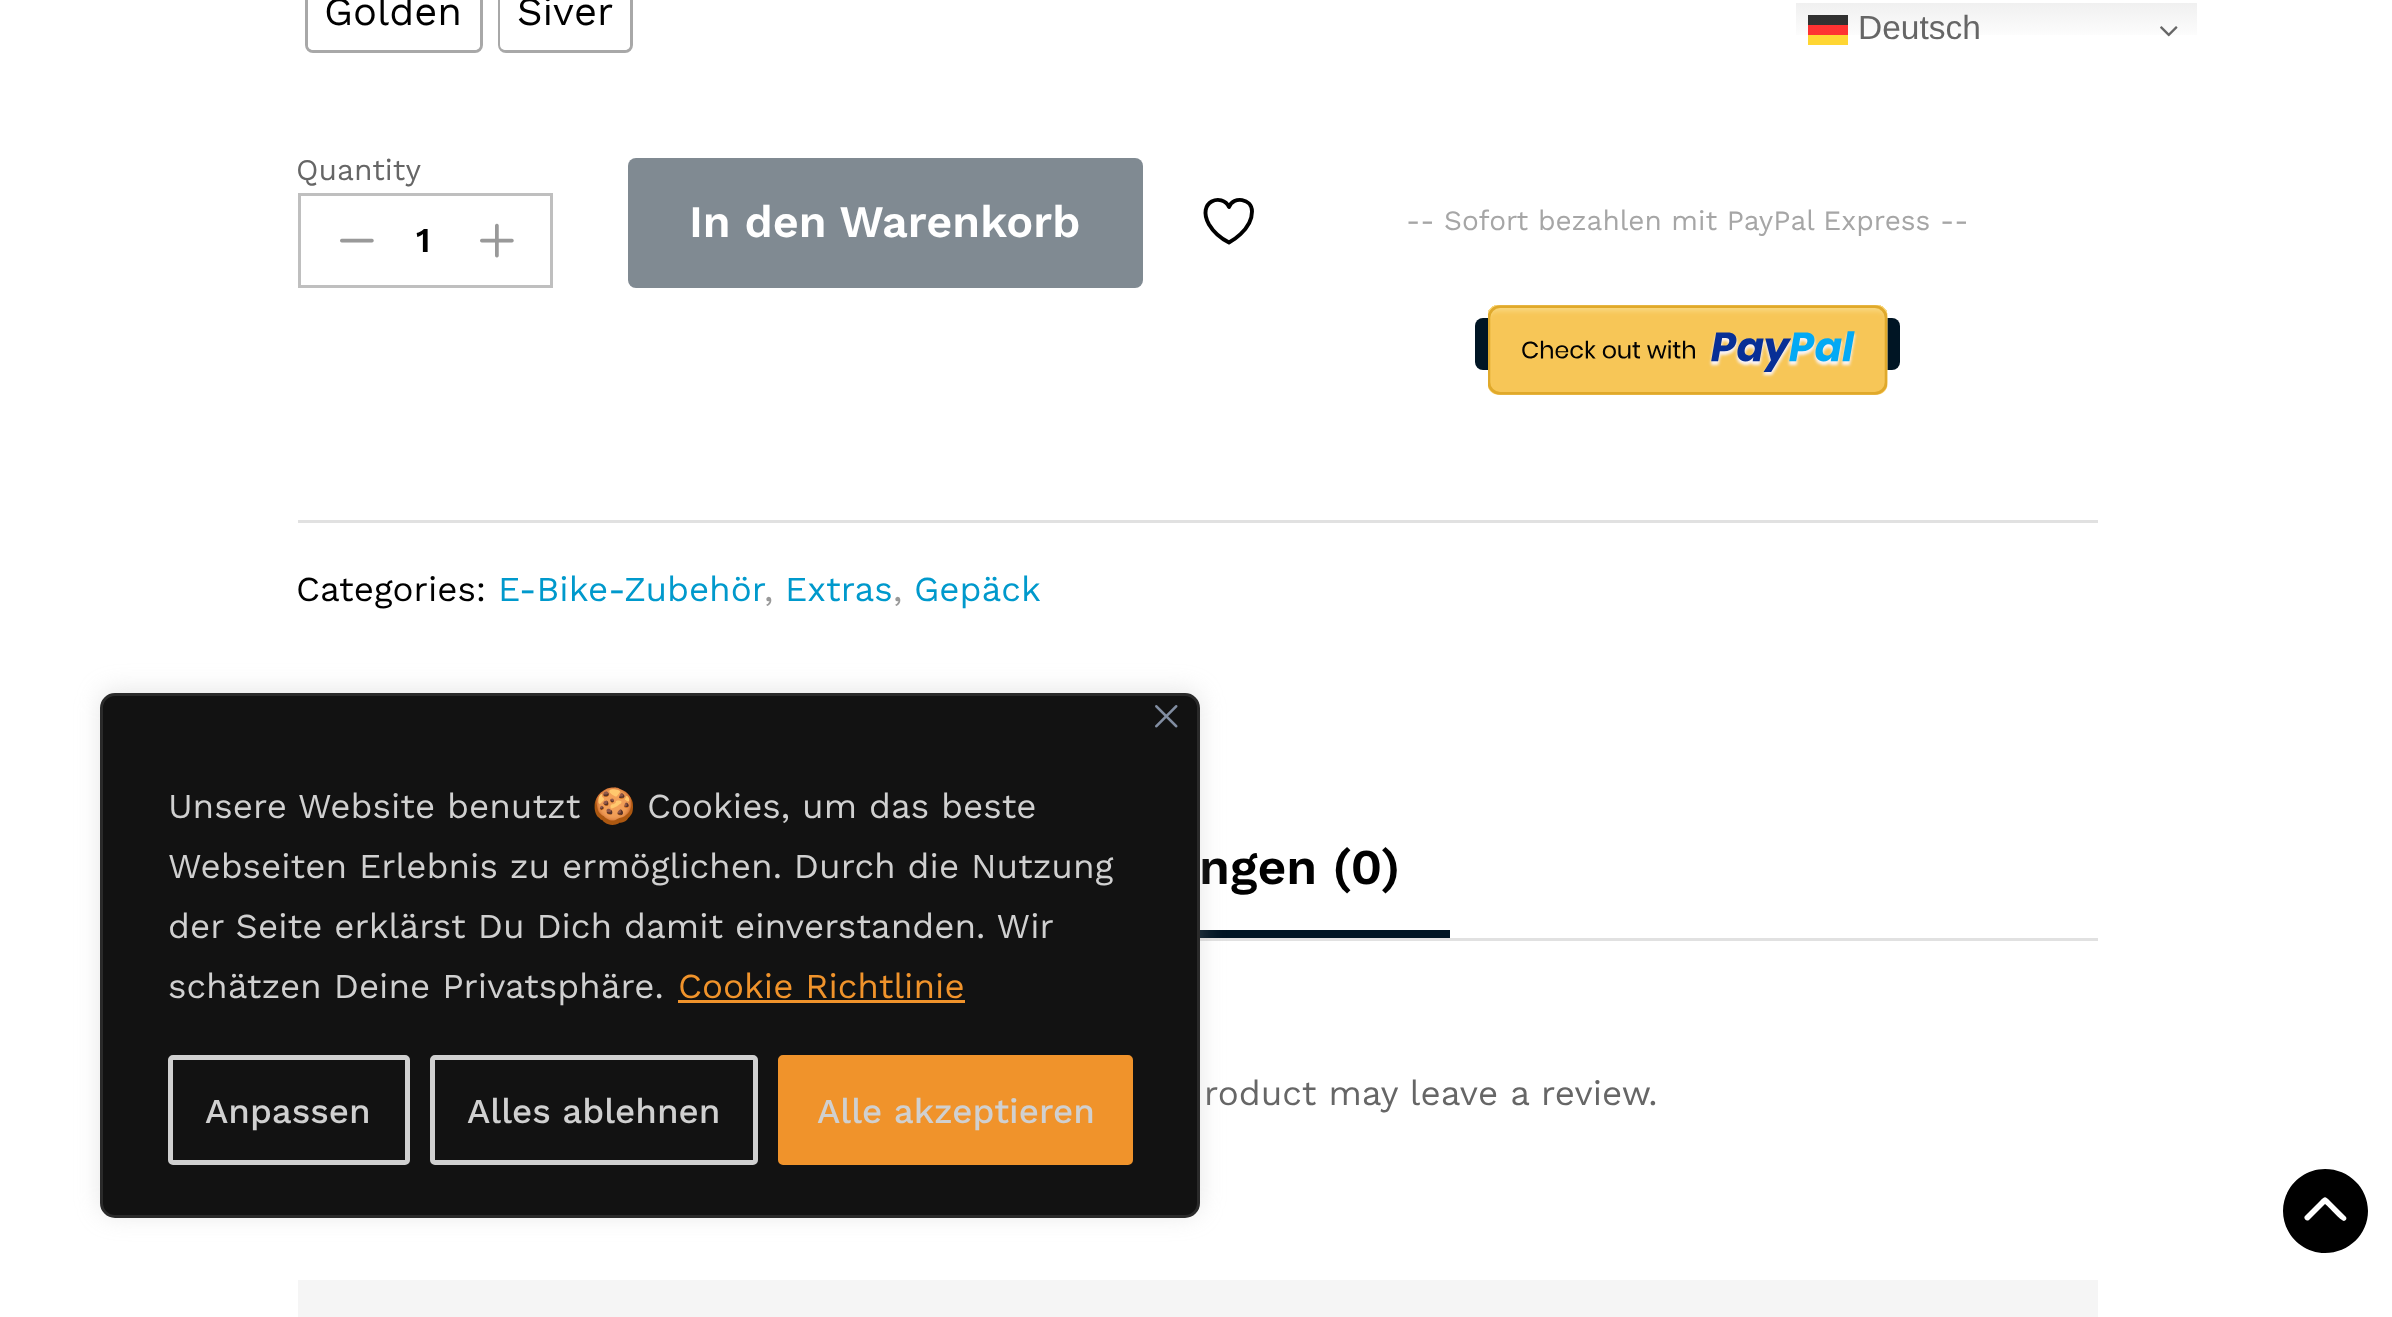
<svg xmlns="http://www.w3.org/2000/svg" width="2392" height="1317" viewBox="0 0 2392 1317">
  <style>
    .t1 { font: 40px Work Sans; fill: #000; }
    .t2 { font: 30px Work Sans; fill: #666; }
    .t3 { font: 600 35px Work Sans; fill: #000; }
    .t4 { font: 600 45px Work Sans; fill: #fff; }
    .t5 { font: 28px Work Sans; fill: #a6a6a6; }
    .t6 { font: 35px Work Sans; fill: #000; }
    .t7 { font: 35px Work Sans; fill: #09c; }
    .t8 { font: 35px Work Sans; fill: #999; }
    .t9 { font: 600 50px Work Sans; fill: #000; }
    .t10 { font: 35px Work Sans; fill: #666; }
    .t11 { font: 33.5px Liberation Sans; fill: #666; }
    .t12 { font: 35px Work Sans; fill: #d0d0d0; }
    .t13 { font: 35px Noto Color Emoji; fill: #d0d0d0; }
    .t14 { font: 35px Work Sans; fill: #f0932b; }
    .t15 { font: 500 35px Work Sans; fill: #d0d0d0; }
  </style>
  <defs>
    <linearGradient id="g1" gradientUnits="userSpaceOnUse" x1="1996" y1="0" x2="1996" y2="60"><stop offset="0" stop-color="#efefef"/><stop offset="0.7" stop-color="#fff"/></linearGradient>
    <linearGradient id="g2" gradientUnits="userSpaceOnUse" x1="1996" y1="0" x2="1996" y2="60"><stop offset="0" stop-color="#fc3030"/><stop offset="0.7" stop-color="#f33"/></linearGradient>
    <linearGradient id="g3" gradientUnits="userSpaceOnUse" x1="1996" y1="0" x2="1996" y2="60"><stop offset="0" stop-color="#303030"/><stop offset="0.7" stop-color="#333"/></linearGradient>
  </defs>
  <rect width="100%" height="100%" fill="#fff"/>
  <rect x="306.5" y="-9.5" width="175" height="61" rx="6.5" fill="none" stroke="#a8a8a8" stroke-width="3"/>
  <rect x="308" y="-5" width="172" height="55" rx="5" fill="#fff"/>
  <text x="324" y="25" class="t1">Golden</text>
  <rect x="499.5" y="-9.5" width="132" height="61" rx="6.5" fill="none" stroke="#a8a8a8" stroke-width="3"/>
  <rect x="500" y="-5" width="130" height="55" rx="5" fill="#fff"/>
  <text x="517" y="25" class="t1">Siver</text>
  <text x="296" y="180" class="t2">Quantity</text>
  <rect x="299.5" y="194.5" width="252" height="92" fill="none" stroke="#bfbfbf" stroke-width="3"/>
  <image x="340" y="238" width="34" height="5" href="images/1.png"/>
  <text x="416" y="252" class="t3">1</text>
  <image x="480" y="223" width="34" height="35" href="images/2.png"/>
  <rect x="628" y="158" width="515" height="130" rx="8" fill="#808a92"/>
  <text x="689" y="237" class="t4">In den Warenkorb</text>
  <path d="M1252 211.5C1252 198.5 1233.5 195.5 1229 207C1222.5 192.5 1196 201 1209 224.5C1213.5 232 1221 238.5 1229 242.5C1229 242.5 1252 230.5 1252 211.5Z" fill="none" stroke="#000" stroke-width="3.9" stroke-linecap="round" stroke-linejoin="round"/>
  <text x="1406" y="230" class="t5">-- Sofort bezahlen mit PayPal Express --</text>
  <rect x="1475" y="318" width="425" height="52" rx="8" fill="#001524"/>
  <image x="1488" y="305" width="400" height="90" href="images/3.png"/>
  <rect x="298" y="520" width="1800" height="3" fill="#e1e1e1"/>
  <text x="296" y="601" class="t6">Categories:</text>
  <text x="498" y="601" class="t7">E-Bike-Zubehör</text>
  <text x="764" y="601" class="t8">,</text>
  <text x="785" y="601" class="t7">Extras</text>
  <text x="893" y="601" class="t8">,</text>
  <text x="914" y="601" class="t7">Gepäck</text>
  <rect x="1200" y="938" width="898" height="3" fill="#e1e1e1"/>
  <text x="1199" y="884" class="t9">ngen (0)</text>
  <rect x="1200" y="930" width="250" height="8" fill="#001524"/>
  <text x="1204" y="1105" class="t10">roduct may leave a review.</text>
  <rect x="298" y="1280" width="1800" height="37" fill="#f5f5f5"/>
  <rect x="1796" y="3" width="401" height="32" fill="url(#g1)"/>
  <rect x="1808" y="25" width="40" height="10" fill="url(#g2)"/>
  <rect x="1808" y="15" width="40" height="10" fill="url(#g3)"/>
  <text x="1858" y="39" class="t11">Deutsch</text>
  <image x="2160" y="26" width="18" height="11" href="images/4.png"/>
  <rect x="1808" y="35" width="40" height="10" fill="#ffd633"/>
  <rect x="100" y="690" width="1100" height="525" rx="15" fill="#acabab4d" filter="blur(12.5px)"/>
  <rect x="101.5" y="694.5" width="1097" height="522" rx="13.5" fill="#121212" stroke="#2a2a2a" stroke-width="3"/>
  <image x="1155" y="705" width="23" height="23" href="images/5.png"/>
  <text x="168" y="818" class="t12">Unsere Website benutzt</text>
  <text x="592" y="818" class="t13">🍪</text>
  <text x="647" y="818" class="t12">Cookies, um das beste</text>
  <text x="168" y="878" class="t12">Webseiten Erlebnis zu ermöglichen. Durch die Nutzung</text>
  <text x="168" y="938" class="t12">der Seite erklärst Du Dich damit einverstanden. Wir</text>
  <text x="168" y="998" class="t12">schätzen Deine Privatsphäre.</text>
  <text x="678" y="998" class="t14">Cookie Richtlinie</text>
  <rect x="678" y="1000" width="287" height="3" fill="#f0932b"/>
  <rect x="170.5" y="1057.5" width="237" height="105" rx="2.5" fill="none" stroke="#d0d0d0" stroke-width="5"/>
  <text x="205" y="1123" class="t15">Anpassen</text>
  <rect x="432.5" y="1057.5" width="323" height="105" rx="2.5" fill="none" stroke="#d0d0d0" stroke-width="5"/>
  <text x="467" y="1123" class="t15">Alles ablehnen</text>
  <rect x="780.5" y="1057.5" width="350" height="105" rx="2.5" fill="#f0932b" stroke="#f0932b" stroke-width="5"/>
  <text x="817" y="1123" class="t15">Alle akzeptieren</text>
  <path d="M2325 1253C2302 1253 2283 1234 2283 1211C2283 1188 2302 1169 2325 1169C2349 1169 2368 1188 2368 1211C2368 1234 2349 1253 2325 1253ZM2305 1216C2303 1218 2306 1222 2309 1220L2325 1204C2328 1206 2341 1221 2344 1221C2346 1220 2347 1219 2346 1217L2330 1201C2325 1196 2325 1196 2320 1201Z" fill="#000"/>
</svg>
